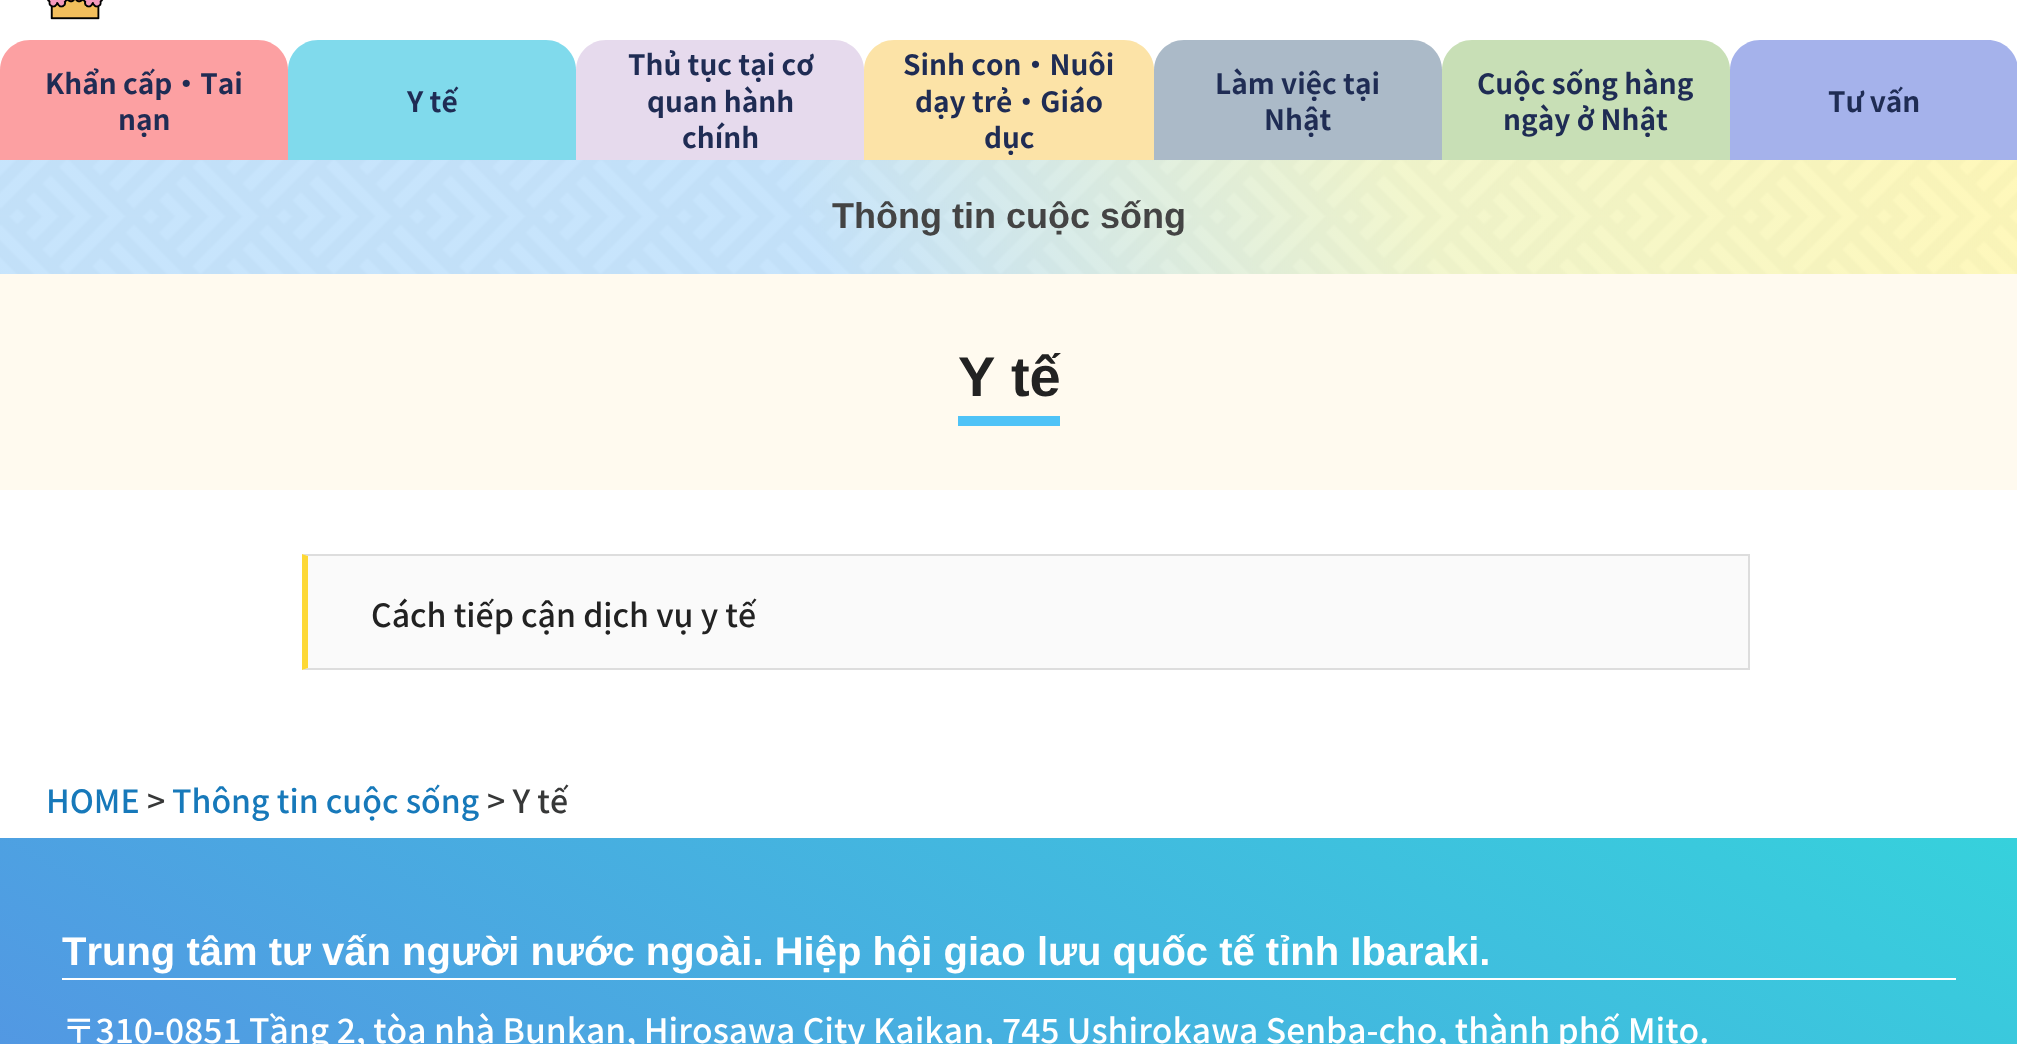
<svg xmlns="http://www.w3.org/2000/svg" width="2017" height="1044" viewBox="0 0 2017 1044">
  <style>*{font-kerning:none!important;font-variant-ligatures:none!important}</style>
  <style>
    .t1 { font: bold 28px Noto Sans JP; fill: #1f2c54; }
    .t2 { font: bold 36px Liberation Sans; fill: #444; }
    .t3 { font: bold 56px Liberation Sans; fill: #222; }
    .t4 { font: 500 32px Noto Sans JP; fill: #222; }
    .t5 { font: 500 32px Noto Sans JP; fill: #1779ba; }
    .t6 { font: 500 32px Noto Sans JP; fill: #373838; }
    .t7 { font: bold 40px Liberation Sans; fill: #fff; }
    .t8 { font: 500 33.6px Noto Sans JP; fill: #fff; }
  </style>
  <defs>
    <linearGradient id="g1" gradientUnits="userSpaceOnUse" x1="617" y1="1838" x2="1401" y2="482"><stop offset="0" stop-color="#5b86e5"/><stop offset="1" stop-color="#36d1dc"/></linearGradient>
  </defs>
  <rect width="100%" height="100%" fill="#fff"/>
  <image x="47" y="0" width="57" height="20" href="images/1.png"/>
  <path d="M30 40H258C274.5 40 288 53.5 288 70V160H0V70C0 53.5 13.5 40 30 40Z" fill="#fca0a2"/>
  <text x="45" y="94" class="t1">Khẩn cấp・Tai</text>
  <text x="118" y="130" class="t1">nạn</text>
  <path d="M318 40H546C562.5 40 576 53.5 576 70V160H288V70C288 53.5 301.5 40 318 40Z" fill="#80daec"/>
  <text x="407" y="112" class="t1">Y tế</text>
  <path d="M606 40H834C850.5 40 864 53.5 864 70V160H576V70C576 53.5 589.5 40 606 40Z" fill="#e6daed"/>
  <text x="628" y="75" class="t1">Thủ tục tại cơ</text>
  <text x="647" y="112" class="t1">quan hành</text>
  <text x="682" y="148" class="t1">chính</text>
  <path d="M894 40H1124C1140.5 40 1154 53.5 1154 70V160H864V70C864 53.5 877.5 40 894 40Z" fill="#fce3a7"/>
  <text x="903" y="75" class="t1">Sinh con・Nuôi</text>
  <text x="915" y="112" class="t1">dạy trẻ・Giáo</text>
  <text x="984" y="148" class="t1">dục</text>
  <path d="M1184 40H1412C1428.5 40 1442 53.5 1442 70V160H1154V70C1154 53.5 1167.5 40 1184 40Z" fill="#abbac8"/>
  <text x="1215" y="94" class="t1">Làm việc tại</text>
  <text x="1264" y="130" class="t1">Nhật</text>
  <path d="M1472 40H1700C1716.5 40 1730 53.5 1730 70V160H1442V70C1442 53.5 1455.5 40 1472 40Z" fill="#c8dfb6"/>
  <text x="1477" y="94" class="t1">Cuộc sống hàng</text>
  <text x="1503" y="130" class="t1">ngày ở Nhật</text>
  <path d="M1760 40H1988C2004.5 40 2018 53.5 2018 70V160H1730V70C1730 53.5 1743.5 40 1760 40Z" fill="#a5b2eb"/>
  <text x="1828" y="112" class="t1">Tư vấn</text>
  <image x="0" y="160" width="2017" height="114" href="images/2.png"/>
  <text x="832" y="228" class="t2">Thông tin cuộc sống</text>
  <rect x="0" y="274" width="2017" height="216" fill="#fffaef"/>
  <rect x="958" y="416" width="102" height="10" fill="#4fc3f7"/>
  <text x="958" y="396" class="t3">Y tế</text>
  <rect x="308" y="556" width="1440" height="112" fill="#fafafa"/>
  <path d="M302 554H1750L1748 556H308Z" fill="#ddd"/>
  <rect x="1748" y="554" width="2" height="116" fill="#ddd"/>
  <path d="M1750 670H302L308 668H1748Z" fill="#ddd"/>
  <path d="M302 670V554L308 556V668Z" fill="#fdd835"/>
  <text x="371" y="627" class="t4">Cách tiếp cận dịch vụ y tế</text>
  <text x="46" y="813" class="t5">HOME</text>
  <text x="147" y="813" class="t6">&gt;</text>
  <text x="172" y="813" class="t5">Thông tin cuộc sống</text>
  <text x="487" y="813" class="t6">&gt; Y tế</text>
  <rect x="0" y="838" width="2017" height="206" fill="url(#g1)"/>
  <rect x="62" y="978" width="1894" height="2" fill="#fff"/>
  <text x="62" y="965" class="t7">Trung tâm tư vấn người nước ngoài. Hiệp hội giao lưu quốc tế tỉnh Ibaraki.</text>
  <text x="62" y="1043" word-spacing="-0.1" class="t8">〒310-0851 Tầng 2, tòa nhà Bunkan, Hirosawa City Kaikan,</text>
  <text x="1002" y="1043" word-spacing="-0.1" class="t8">745 Ushirokawa Senba-cho, thành phố Mito.</text>
</svg>
